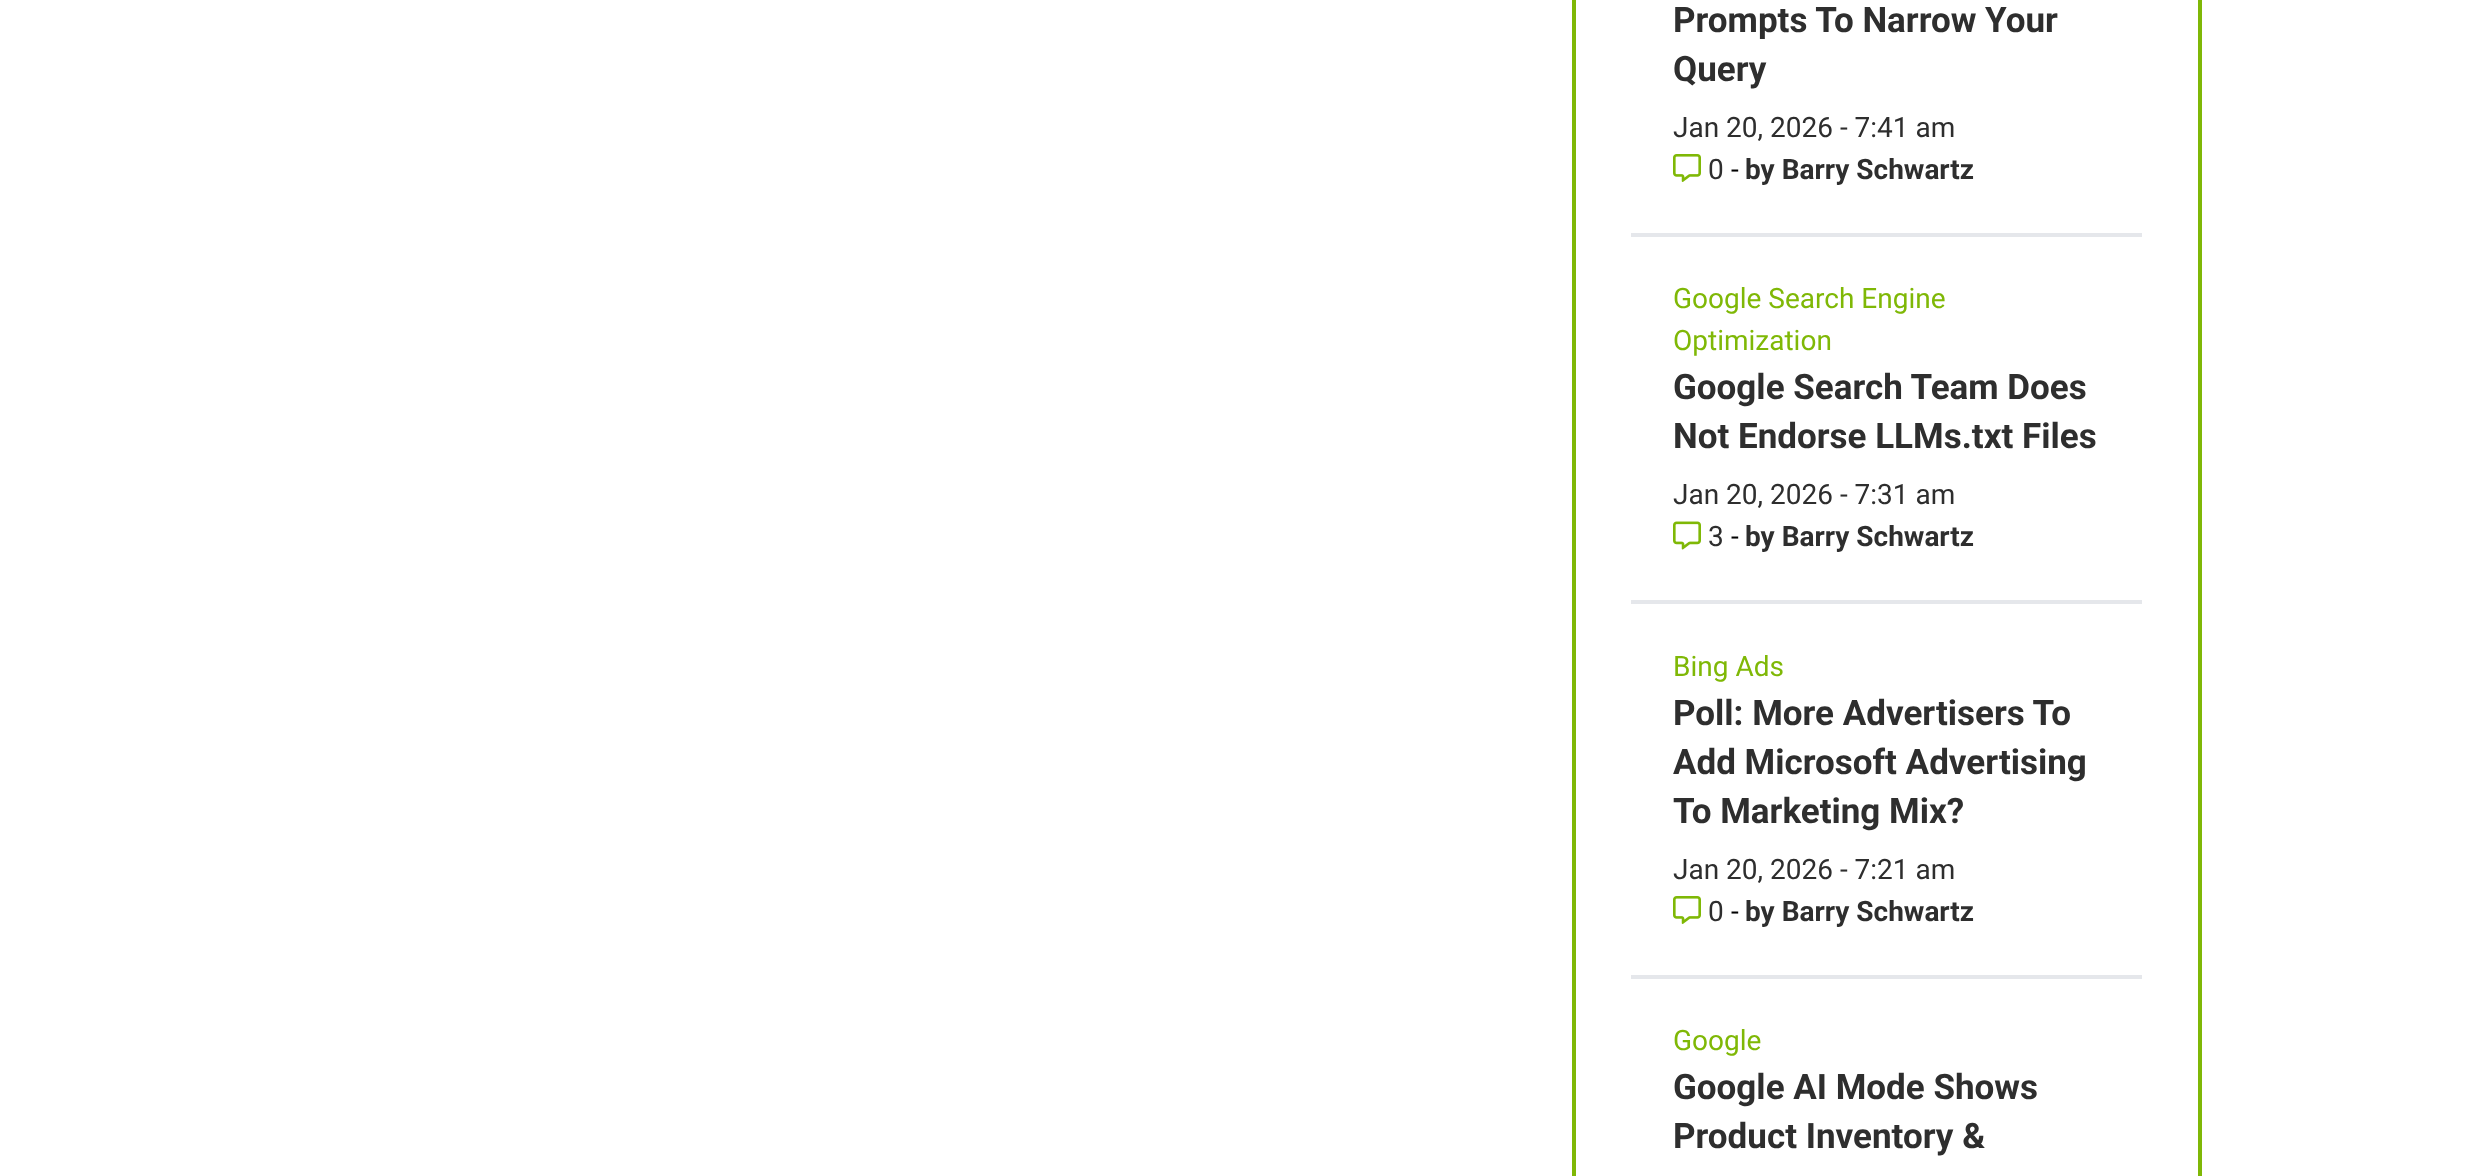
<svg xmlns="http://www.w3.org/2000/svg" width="2492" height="1176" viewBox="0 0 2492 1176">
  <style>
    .t1 { font: bold 35px Roboto; fill: #2e2e2e; }
    .t2 { font: 28px Roboto; fill: #2e2e2e; }
    .t3 { font: 28px Roboto; fill: #000; }
    .t4 { font: bold 28px Roboto; fill: #2e2e2e; }
    .t5 { font: 28px Roboto; fill: #7fb806; }
  </style>
  <rect width="100%" height="100%" fill="#fff"/>
  <rect x="1574" y="-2" width="626" height="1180" fill="none" stroke="#7fb806" stroke-width="4"/>
  <rect x="1631" y="233" width="511" height="4" fill="#e5e7eb"/>
  <text x="1673" y="32" class="t1">Prompts To Narrow Your</text>
  <text x="1673" y="81" class="t1">Query</text>
  <text x="1673" y="137" class="t2">Jan 20, 2026 - 7:41 am</text>
  <image x="1673" y="154" width="28" height="28" href="images/1.png"/>
  <text x="1708" y="179" class="t2">0</text>
  <text x="1731" y="179" class="t3">-</text>
  <text x="1745" y="179" class="t4">by Barry Schwartz</text>
  <rect x="1631" y="600" width="511" height="4" fill="#e5e7eb"/>
  <text x="1673" y="308" class="t5">Google Search Engine</text>
  <text x="1673" y="350" class="t5">Optimization</text>
  <text x="1673" y="399" class="t1">Google Search Team Does</text>
  <text x="1673" y="448" class="t1">Not Endorse LLMs.txt Files</text>
  <text x="1673" y="504" class="t2">Jan 20, 2026 - 7:31 am</text>
  <image x="1673" y="521" width="28" height="29" href="images/2.png"/>
  <text x="1708" y="546" class="t2">3</text>
  <text x="1731" y="546" class="t3">-</text>
  <text x="1745" y="546" class="t4">by Barry Schwartz</text>
  <rect x="1631" y="975" width="511" height="4" fill="#e5e7eb"/>
  <text x="1673" y="676" class="t5">Bing Ads</text>
  <text x="1673" y="725" class="t1">Poll: More Advertisers To</text>
  <text x="1673" y="774" class="t1">Add Microsoft Advertising</text>
  <text x="1673" y="823" class="t1">To Marketing Mix?</text>
  <text x="1673" y="879" class="t2">Jan 20, 2026 - 7:21 am</text>
  <image x="1673" y="896" width="28" height="28" href="images/1.png"/>
  <text x="1708" y="921" class="t2">0</text>
  <text x="1731" y="921" class="t3">-</text>
  <text x="1745" y="921" class="t4">by Barry Schwartz</text>
  <text x="1673" y="1050" class="t5">Google</text>
  <text x="1673" y="1099" class="t1">Google AI Mode Shows</text>
  <text x="1673" y="1148" class="t1">Product Inventory &amp;</text>
</svg>
